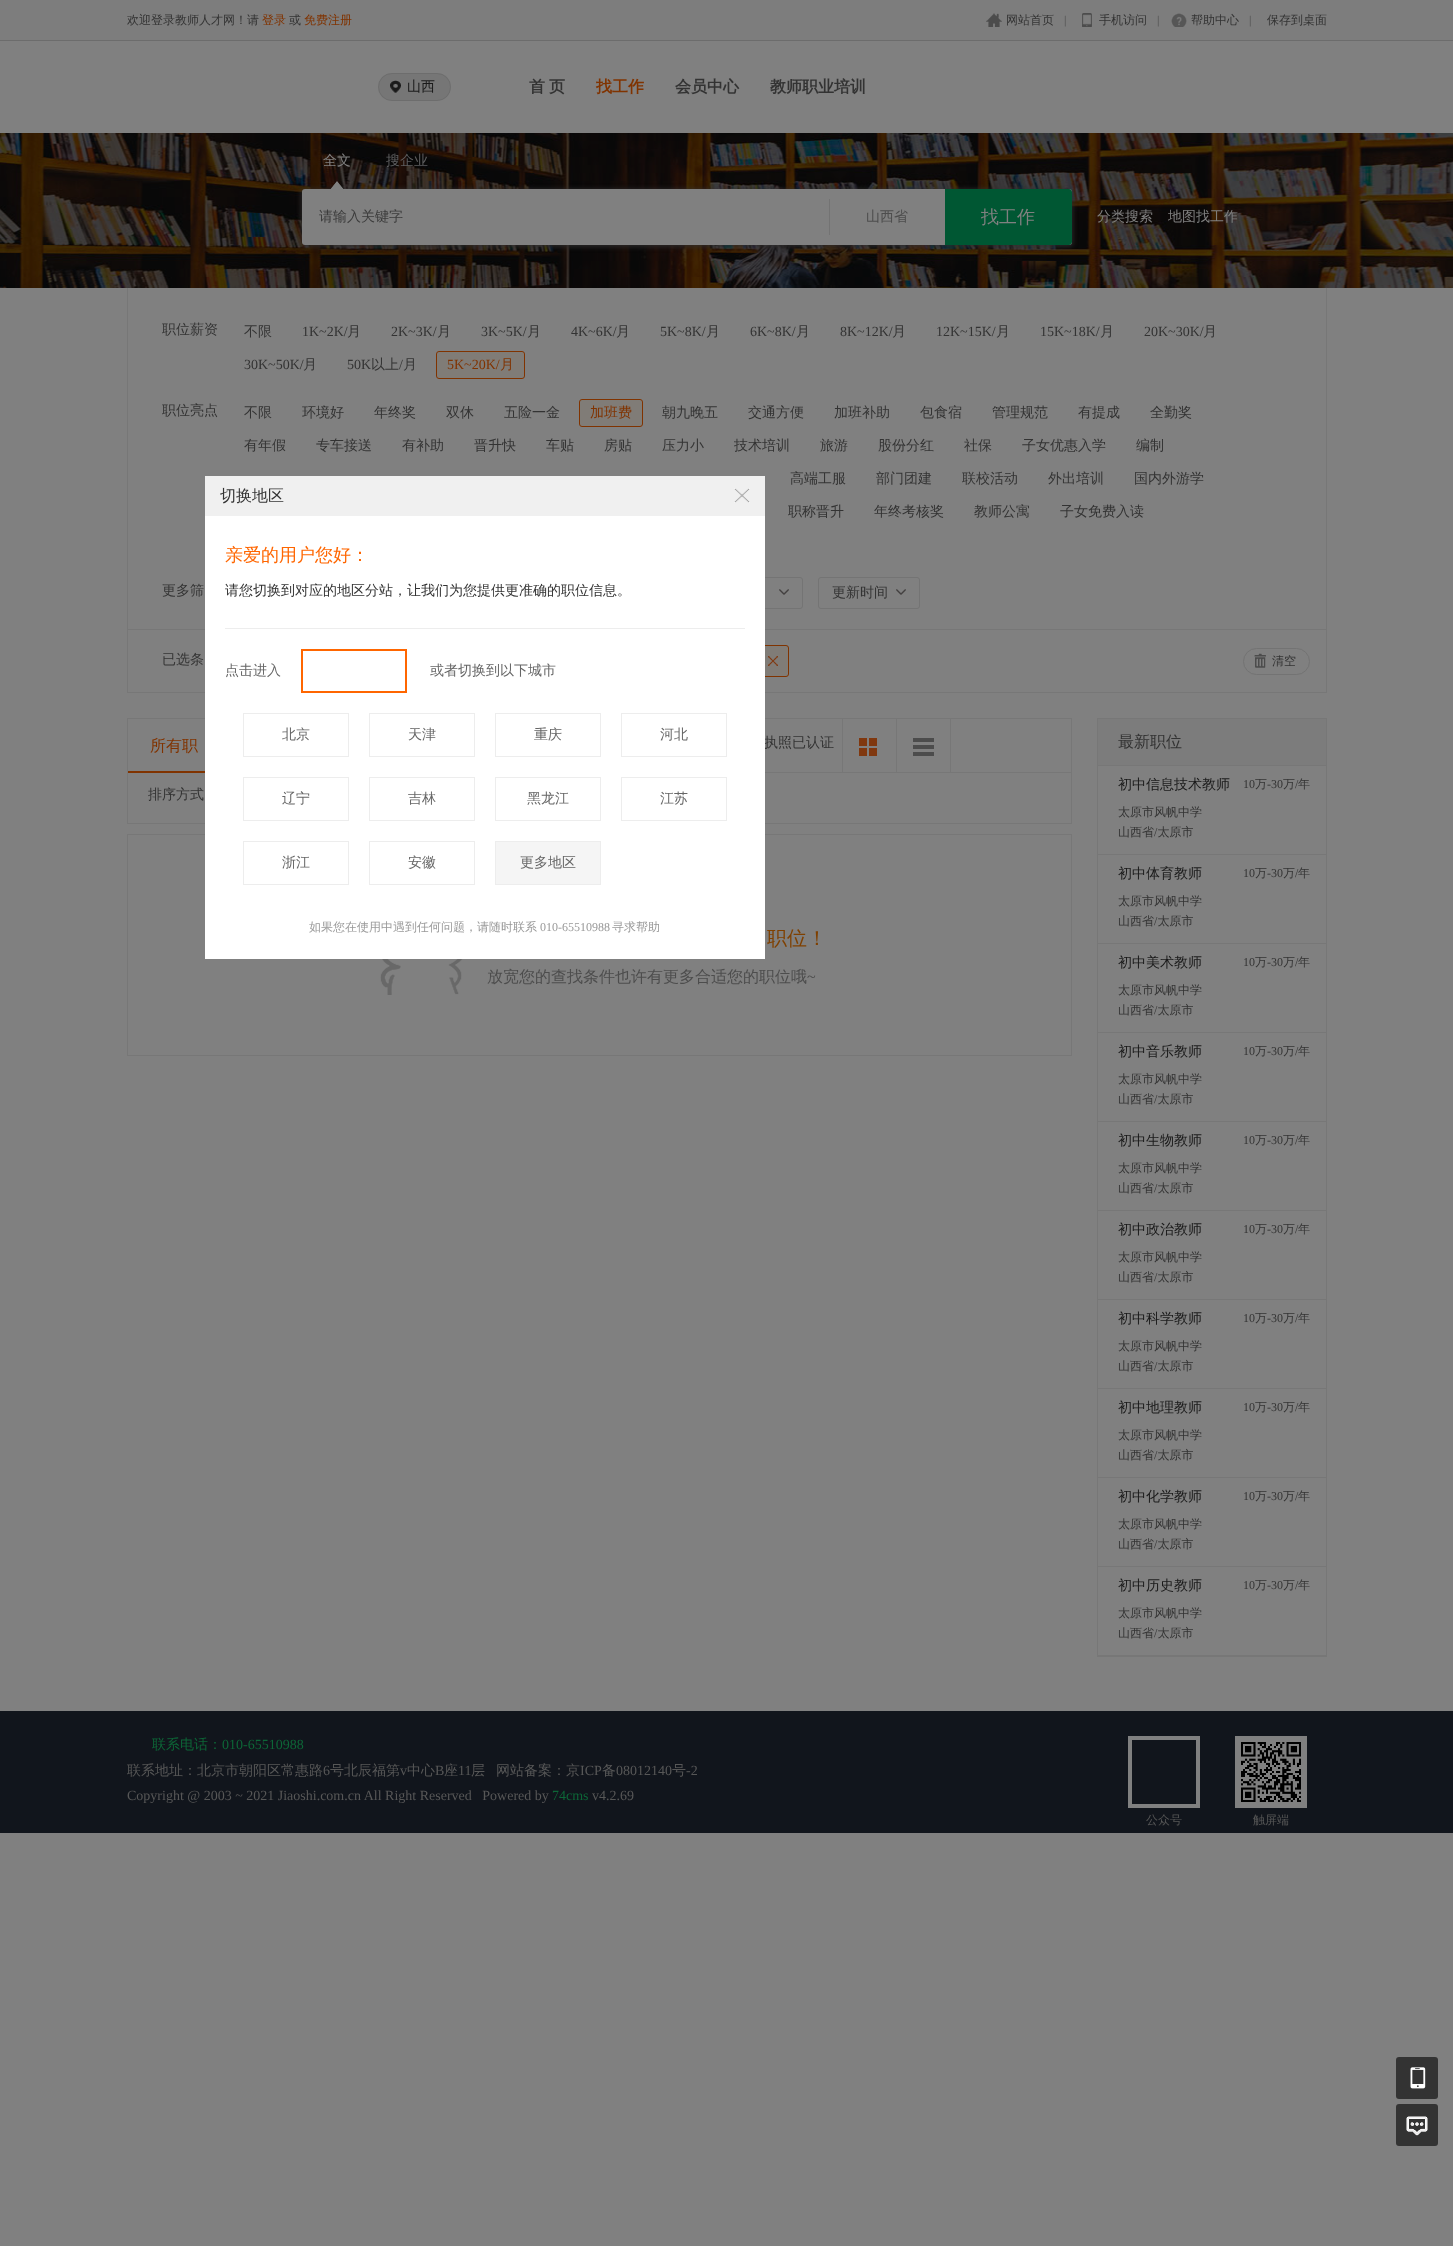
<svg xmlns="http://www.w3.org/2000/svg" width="1453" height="2246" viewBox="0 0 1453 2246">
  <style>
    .t1 { font: 500 12px WenQuanYi Zen Hei; fill: #333; }
    .t2 { font: 500 12px WenQuanYi Zen Hei; fill: #803300; }
    .t3 { font: 12px Liberation Serif; fill: #4d4d4d; }
    .t4 { font: 500 14px WenQuanYi Zen Hei; fill: #1a1a1a; }
    .t5 { font: bold 16px WenQuanYi Zen Hei; fill: #333; }
    .t6 { font: bold 16px WenQuanYi Zen Hei; fill: #803300; }
    .t7 { font: 500 14px WenQuanYi Zen Hei; fill: #808080; }
    .t8 { font: 500 14px WenQuanYi Zen Hei; fill: #5e5e5f; }
    .t9 { font: 500 14px WenQuanYi Zen Hei; fill: #3b3b3b; }
    .t10 { font: 500 14px WenQuanYi Zen Hei; fill: #4d4d4d; }
    .t11 { font: 500 18px WenQuanYi Zen Hei; fill: #808080; }
    .t12 { font: 500 14px WenQuanYi Zen Hei; fill: #333; }
    .t13 { font: 14px Liberation Serif; fill: #333; }
    .t14 { font: 14px Liberation Serif; fill: #803300; }
    .t15 { font: 500 14px WenQuanYi Zen Hei; fill: #803300; }
    .t16 { font: 500 16px WenQuanYi Zen Hei; fill: #333; }
    .t17 { font: 500 18px WenQuanYi Zen Hei; fill: #f60; }
    .t18 { font: 500 14px WenQuanYi Zen Hei; fill: #666; }
    .t19 { font: 500 12px WenQuanYi Zen Hei; fill: #999; }
    .t20 { font: 12px Liberation Serif; fill: #999; }
    .t21 { font: 500 16px WenQuanYi Zen Hei; fill: #803300; }
    .t22 { font: 500 20px WenQuanYi Zen Hei; fill: #7f4000; }
    .t23 { font: 500 16px WenQuanYi Zen Hei; fill: #4d4d4d; }
    .t24 { font: 16px Liberation Serif; fill: #4d4d4d; }
    .t25 { font: 12px Liberation Serif; fill: #333; }
    .t26 { font: 500 14px WenQuanYi Zen Hei; fill: #0d6637; }
    .t27 { font: 14px Liberation Serif; fill: #0d6637; }
    .t28 { font: 500 14px WenQuanYi Zen Hei; fill: #575757; }
    .t29 { font: 14px Liberation Serif; fill: #575757; }
    .t30 { font: 500 12px WenQuanYi Zen Hei; fill: #575757; }
  </style>
  <rect width="100%" height="100%" fill="#808080"/>
  <rect x="0" y="0" width="1453" height="40" fill="#7d7d7d"/>
  <text x="127" y="24" class="t1">欢迎登录教师人才网！请</text>
  <text x="262" y="24" class="t2">登录</text>
  <text x="289" y="24" class="t1">或</text>
  <text x="304" y="24" class="t2">免费注册</text>
  <image x="986" y="13" width="16" height="14" href="images/1.png"/>
  <text x="1006" y="24" class="t1">网站首页</text>
  <text x="1064" y="24" class="t3">|</text>
  <image x="1082" y="13" width="10" height="14" href="images/2.png"/>
  <text x="1099" y="24" class="t1">手机访问</text>
  <text x="1157" y="24" class="t3">|</text>
  <image x="1171" y="13" width="16" height="14" href="images/3.png"/>
  <text x="1191" y="24" class="t1">帮助中心</text>
  <text x="1249" y="24" class="t3">|</text>
  <text x="1267" y="24" class="t1">保存到桌面</text>
  <rect x="0" y="40" width="1453" height="1" fill="#6c6c6c"/>
  <rect x="378" y="73" width="73" height="28" rx="14" fill="#767676"/>
  <rect x="378.5" y="73.5" width="72" height="27" rx="13.5" fill="none" stroke="#3c3c3c24"/>
  <image x="390" y="80" width="11" height="13" href="images/4.png"/>
  <text x="407" y="91" class="t4">山西</text>
  <text x="529" y="92" class="t5">首</text>
  <text x="549" y="92" class="t5">页</text>
  <text x="596" y="92" class="t6">找工作</text>
  <text x="675" y="92" class="t5">会员中心</text>
  <text x="770" y="92" class="t5">教师职业培训</text>
  <image x="0" y="133" width="1453" height="155" href="images/5.png"/>
  <text x="323" y="165" class="t7">全文</text>
  <rect x="301" y="189" width="772" height="58" rx="4" fill="#2f2e2ed4" filter="blur(2.5px)"/>
  <image x="330" y="181" width="14" height="8" href="images/6.png"/>
  <text x="386" y="165" class="t8">搜企业</text>
  <rect x="302" y="189" width="770" height="56" rx="3" fill="#808080"/>
  <text x="319" y="221" class="t9">请输入关键字</text>
  <rect x="829" y="199" width="1" height="36" fill="#737373"/>
  <text x="866" y="221" class="t10">山西省</text>
  <path d="M945 189H1069C1070.5 189 1072 190.5 1072 192V242C1072 243.5 1070.5 245 1069 245H945Z" fill="#005733"/>
  <text x="981" y="223" class="t11">找工作</text>
  <text x="1097" y="221" class="t7">分类搜索</text>
  <text x="1168" y="221" class="t7">地图找工作</text>
  <rect x="1326" y="288" width="1" height="405" fill="#777"/>
  <rect x="127" y="692" width="1200" height="1" fill="#777"/>
  <rect x="127" y="288" width="1" height="405" fill="#777"/>
  <text x="162" y="334" class="t12">职位薪资</text>
  <text x="244" y="336" class="t12">不限</text>
  <text x="302" y="336" class="t13">1K~2K/</text>
  <text x="347" y="336" class="t12">月</text>
  <text x="391" y="336" class="t13">2K~3K/</text>
  <text x="437" y="336" class="t12">月</text>
  <text x="481" y="336" class="t13">3K~5K/</text>
  <text x="527" y="336" class="t12">月</text>
  <text x="571" y="336" class="t13">4K~6K/</text>
  <text x="616" y="336" class="t12">月</text>
  <text x="660" y="336" class="t13">5K~8K/</text>
  <text x="706" y="336" class="t12">月</text>
  <text x="750" y="336" class="t13">6K~8K/</text>
  <text x="796" y="336" class="t12">月</text>
  <text x="840" y="336" class="t13">8K~12K/</text>
  <text x="892" y="336" class="t12">月</text>
  <text x="936" y="336" class="t13">12K~15K/</text>
  <text x="996" y="336" class="t12">月</text>
  <text x="1040" y="336" class="t13">15K~18K/</text>
  <text x="1100" y="336" class="t12">月</text>
  <text x="1144" y="336" class="t13">20K~30K/</text>
  <text x="1203" y="336" class="t12">月</text>
  <text x="244" y="369" class="t13">30K~50K/</text>
  <text x="303" y="369" class="t12">月</text>
  <text x="347" y="369" class="t13">50K</text>
  <text x="371" y="369" class="t12">以上</text>
  <text x="399" y="369" class="t13">/</text>
  <text x="403" y="369" class="t12">月</text>
  <rect x="436.5" y="351.5" width="88" height="27" rx="2.5" fill="#807c77" stroke="#803300"/>
  <text x="447" y="369" class="t14">5K~20K/</text>
  <text x="500" y="369" class="t15">月</text>
  <text x="162" y="415" class="t12">职位亮点</text>
  <text x="244" y="417" class="t12">不限</text>
  <text x="302" y="417" class="t12">环境好</text>
  <text x="374" y="417" class="t12">年终奖</text>
  <text x="446" y="417" class="t12">双休</text>
  <text x="504" y="417" class="t12">五险一金</text>
  <rect x="579.5" y="399.5" width="63" height="27" rx="2.5" fill="#807c77" stroke="#803300"/>
  <text x="590" y="417" class="t15">加班费</text>
  <text x="662" y="417" class="t12">朝九晚五</text>
  <text x="748" y="417" class="t12">交通方便</text>
  <text x="834" y="417" class="t12">加班补助</text>
  <text x="920" y="417" class="t12">包食宿</text>
  <text x="992" y="417" class="t12">管理规范</text>
  <text x="1078" y="417" class="t12">有提成</text>
  <text x="1150" y="417" class="t12">全勤奖</text>
  <text x="244" y="450" class="t12">有年假</text>
  <text x="316" y="450" class="t12">专车接送</text>
  <text x="402" y="450" class="t12">有补助</text>
  <text x="474" y="450" class="t12">晋升快</text>
  <text x="546" y="450" class="t12">车贴</text>
  <text x="604" y="450" class="t12">房贴</text>
  <text x="662" y="450" class="t12">压力小</text>
  <text x="734" y="450" class="t12">技术培训</text>
  <text x="820" y="450" class="t12">旅游</text>
  <text x="878" y="450" class="t12">股份分红</text>
  <text x="964" y="450" class="t12">社保</text>
  <text x="1022" y="450" class="t12">子女优惠入学</text>
  <text x="1136" y="450" class="t12">编制</text>
  <text x="790" y="483" class="t12">高端工服</text>
  <text x="876" y="483" class="t12">部门团建</text>
  <text x="962" y="483" class="t12">联校活动</text>
  <text x="1048" y="483" class="t12">外出培训</text>
  <text x="1134" y="483" class="t12">国内外游学</text>
  <text x="788" y="516" class="t12">职称晋升</text>
  <text x="874" y="516" class="t12">年终考核奖</text>
  <text x="974" y="516" class="t12">教师公寓</text>
  <text x="1060" y="516" class="t12">子女免费入读</text>
  <text x="162" y="595" class="t12">更多筛</text>
  <image x="779" y="589" width="10" height="6" href="images/7.png"/>
  <rect x="701.5" y="577.5" width="101" height="31" rx="2.5" fill="none" stroke="#747474"/>
  <image x="896" y="589" width="10" height="6" href="images/7.png"/>
  <rect x="818.5" y="577.5" width="101" height="31" rx="2.5" fill="none" stroke="#747474"/>
  <text x="832" y="597" class="t12">更新时间</text>
  <rect x="128" y="629" width="1198" height="1" fill="#777"/>
  <text x="162" y="664" class="t12">已选条</text>
  <rect x="612" y="645" width="177" height="32" rx="3" fill="#807c77"/>
  <image x="768" y="656" width="10" height="10" href="images/8.png"/>
  <rect x="612.5" y="645.5" width="176" height="31" rx="2.5" fill="none" stroke="#803300"/>
  <image x="1254" y="653" width="12" height="15" href="images/9.png"/>
  <rect x="1243.5" y="648.5" width="66" height="26" rx="13" fill="none" stroke="#737373"/>
  <text x="1272" y="665" class="t1">清空</text>
  <rect x="205" y="476" width="560" height="40" fill="#f0f0f0"/>
  <text x="220" y="501" class="t16">切换地区</text>
  <image x="734" y="488" width="16" height="15" href="images/10.png"/>
  <rect x="127.5" y="718.5" width="944" height="105" fill="none" stroke="#777"/>
  <path d="M237 773H128V771H236Z" fill="#803300"/>
  <text x="764" y="747" class="t12">执照已认证</text>
  <rect x="127.5" y="834.5" width="944" height="221" fill="none" stroke="#777"/>
  <rect x="205" y="516" width="560" height="443" fill="#fff"/>
  <text x="225" y="561" class="t17">亲爱的用户您好：</text>
  <text x="225" y="595" class="t12">请您切换到对应的地区分站，让我们为您提供更准确的职位信息。</text>
  <rect x="225" y="628" width="520" height="1" fill="#ededed"/>
  <text x="225" y="675" class="t18">点击进入</text>
  <rect x="302" y="650" width="104" height="42" fill="none" stroke="#f60" stroke-width="2"/>
  <text x="430" y="675" class="t18">或者切换到以下城市</text>
  <rect x="243.5" y="713.5" width="105" height="43" fill="none" stroke="#ededed"/>
  <text x="282" y="739" class="t18">北京</text>
  <rect x="369.5" y="713.5" width="105" height="43" fill="none" stroke="#ededed"/>
  <text x="408" y="739" class="t18">天津</text>
  <rect x="495.5" y="713.5" width="105" height="43" fill="none" stroke="#ededed"/>
  <text x="534" y="739" class="t18">重庆</text>
  <rect x="621.5" y="713.5" width="105" height="43" fill="none" stroke="#ededed"/>
  <text x="660" y="739" class="t18">河北</text>
  <rect x="243.5" y="777.5" width="105" height="43" fill="none" stroke="#ededed"/>
  <text x="282" y="803" class="t18">辽宁</text>
  <rect x="369.5" y="777.5" width="105" height="43" fill="none" stroke="#ededed"/>
  <text x="408" y="803" class="t18">吉林</text>
  <rect x="495.5" y="777.5" width="105" height="43" fill="none" stroke="#ededed"/>
  <text x="527" y="803" class="t18">黑龙江</text>
  <rect x="621.5" y="777.5" width="105" height="43" fill="none" stroke="#ededed"/>
  <text x="660" y="803" class="t18">江苏</text>
  <rect x="243.5" y="841.5" width="105" height="43" fill="none" stroke="#ededed"/>
  <text x="282" y="867" class="t18">浙江</text>
  <rect x="369.5" y="841.5" width="105" height="43" fill="none" stroke="#ededed"/>
  <text x="408" y="867" class="t18">安徽</text>
  <rect x="495.5" y="841.5" width="105" height="43" fill="#f5f5f5" stroke="#ededed"/>
  <text x="520" y="867" class="t18">更多地区</text>
  <text x="309" y="931" class="t19">如果您在使用中遇到任何问题，请随时联系</text>
  <text x="540" y="931" class="t20">010-65510988</text>
  <text x="612" y="931" class="t19">寻求帮助</text>
  <text x="150" y="751" class="t21">所有职</text>
  <rect x="765" y="772" width="306" height="1" fill="#777"/>
  <image x="859" y="738" width="18" height="18" href="images/11.png"/>
  <rect x="842" y="719" width="1" height="53" fill="#777"/>
  <image x="913" y="738" width="21" height="18" href="images/12.png"/>
  <rect x="896" y="719" width="1" height="53" fill="#777"/>
  <rect x="950" y="719" width="1" height="53" fill="#777"/>
  <text x="148" y="799" class="t12">排序方式</text>
  <image x="377" y="959" width="91" height="36" href="images/13.png"/>
  <text x="767" y="945" class="t22">职位！</text>
  <text x="487" y="982" class="t23">放宽您的查找条件也许有更多合适您的职位哦</text>
  <text x="807" y="982" class="t24">~</text>
  <rect x="1097.5" y="718.5" width="229" height="938" fill="none" stroke="#777"/>
  <rect x="1098" y="719" width="228" height="46" fill="#7c7c7c"/>
  <rect x="1098" y="765" width="228" height="1" fill="#777"/>
  <text x="1118" y="747" class="t16">最新职位</text>
  <rect x="1098" y="854" width="228" height="1" fill="#777"/>
  <text x="1118" y="789" class="t4">初中信息技术教师</text>
  <text x="1243" y="788" class="t25">10</text>
  <text x="1255" y="788" class="t1">万</text>
  <text x="1267" y="788" class="t25">-30</text>
  <text x="1283" y="788" class="t1">万</text>
  <text x="1295" y="788" class="t25">/</text>
  <text x="1298" y="788" class="t1">年</text>
  <text x="1118" y="816" class="t1">太原市风帆中学</text>
  <text x="1118" y="836" class="t1">山西省 太原市</text>
  <text x="1154" y="836" class="t25">/</text>
  <rect x="1098" y="943" width="228" height="1" fill="#777"/>
  <text x="1118" y="878" class="t4">初中体育教师</text>
  <text x="1243" y="877" class="t25">10</text>
  <text x="1255" y="877" class="t1">万</text>
  <text x="1267" y="877" class="t25">-30</text>
  <text x="1283" y="877" class="t1">万</text>
  <text x="1295" y="877" class="t25">/</text>
  <text x="1298" y="877" class="t1">年</text>
  <text x="1118" y="905" class="t1">太原市风帆中学</text>
  <text x="1118" y="925" class="t1">山西省 太原市</text>
  <text x="1154" y="925" class="t25">/</text>
  <rect x="1098" y="1032" width="228" height="1" fill="#777"/>
  <text x="1118" y="967" class="t4">初中美术教师</text>
  <text x="1243" y="966" class="t25">10</text>
  <text x="1255" y="966" class="t1">万</text>
  <text x="1267" y="966" class="t25">-30</text>
  <text x="1283" y="966" class="t1">万</text>
  <text x="1295" y="966" class="t25">/</text>
  <text x="1298" y="966" class="t1">年</text>
  <text x="1118" y="994" class="t1">太原市风帆中学</text>
  <text x="1118" y="1014" class="t1">山西省 太原市</text>
  <text x="1154" y="1014" class="t25">/</text>
  <rect x="1098" y="1121" width="228" height="1" fill="#777"/>
  <text x="1118" y="1056" class="t4">初中音乐教师</text>
  <text x="1243" y="1055" class="t25">10</text>
  <text x="1255" y="1055" class="t1">万</text>
  <text x="1267" y="1055" class="t25">-30</text>
  <text x="1283" y="1055" class="t1">万</text>
  <text x="1295" y="1055" class="t25">/</text>
  <text x="1298" y="1055" class="t1">年</text>
  <text x="1118" y="1083" class="t1">太原市风帆中学</text>
  <text x="1118" y="1103" class="t1">山西省 太原市</text>
  <text x="1154" y="1103" class="t25">/</text>
  <rect x="1098" y="1210" width="228" height="1" fill="#777"/>
  <text x="1118" y="1145" class="t4">初中生物教师</text>
  <text x="1243" y="1144" class="t25">10</text>
  <text x="1255" y="1144" class="t1">万</text>
  <text x="1267" y="1144" class="t25">-30</text>
  <text x="1283" y="1144" class="t1">万</text>
  <text x="1295" y="1144" class="t25">/</text>
  <text x="1298" y="1144" class="t1">年</text>
  <text x="1118" y="1172" class="t1">太原市风帆中学</text>
  <text x="1118" y="1192" class="t1">山西省 太原市</text>
  <text x="1154" y="1192" class="t25">/</text>
  <rect x="1098" y="1299" width="228" height="1" fill="#777"/>
  <text x="1118" y="1234" class="t4">初中政治教师</text>
  <text x="1243" y="1233" class="t25">10</text>
  <text x="1255" y="1233" class="t1">万</text>
  <text x="1267" y="1233" class="t25">-30</text>
  <text x="1283" y="1233" class="t1">万</text>
  <text x="1295" y="1233" class="t25">/</text>
  <text x="1298" y="1233" class="t1">年</text>
  <text x="1118" y="1261" class="t1">太原市风帆中学</text>
  <text x="1118" y="1281" class="t1">山西省 太原市</text>
  <text x="1154" y="1281" class="t25">/</text>
  <rect x="1098" y="1388" width="228" height="1" fill="#777"/>
  <text x="1118" y="1323" class="t4">初中科学教师</text>
  <text x="1243" y="1322" class="t25">10</text>
  <text x="1255" y="1322" class="t1">万</text>
  <text x="1267" y="1322" class="t25">-30</text>
  <text x="1283" y="1322" class="t1">万</text>
  <text x="1295" y="1322" class="t25">/</text>
  <text x="1298" y="1322" class="t1">年</text>
  <text x="1118" y="1350" class="t1">太原市风帆中学</text>
  <text x="1118" y="1370" class="t1">山西省 太原市</text>
  <text x="1154" y="1370" class="t25">/</text>
  <rect x="1098" y="1477" width="228" height="1" fill="#777"/>
  <text x="1118" y="1412" class="t4">初中地理教师</text>
  <text x="1243" y="1411" class="t25">10</text>
  <text x="1255" y="1411" class="t1">万</text>
  <text x="1267" y="1411" class="t25">-30</text>
  <text x="1283" y="1411" class="t1">万</text>
  <text x="1295" y="1411" class="t25">/</text>
  <text x="1298" y="1411" class="t1">年</text>
  <text x="1118" y="1439" class="t1">太原市风帆中学</text>
  <text x="1118" y="1459" class="t1">山西省 太原市</text>
  <text x="1154" y="1459" class="t25">/</text>
  <rect x="1098" y="1566" width="228" height="1" fill="#777"/>
  <text x="1118" y="1501" class="t4">初中化学教师</text>
  <text x="1243" y="1500" class="t25">10</text>
  <text x="1255" y="1500" class="t1">万</text>
  <text x="1267" y="1500" class="t25">-30</text>
  <text x="1283" y="1500" class="t1">万</text>
  <text x="1295" y="1500" class="t25">/</text>
  <text x="1298" y="1500" class="t1">年</text>
  <text x="1118" y="1528" class="t1">太原市风帆中学</text>
  <text x="1118" y="1548" class="t1">山西省 太原市</text>
  <text x="1154" y="1548" class="t25">/</text>
  <rect x="1098" y="1655" width="228" height="1" fill="#777"/>
  <text x="1118" y="1590" class="t4">初中历史教师</text>
  <text x="1243" y="1589" class="t25">10</text>
  <text x="1255" y="1589" class="t1">万</text>
  <text x="1267" y="1589" class="t25">-30</text>
  <text x="1283" y="1589" class="t1">万</text>
  <text x="1295" y="1589" class="t25">/</text>
  <text x="1298" y="1589" class="t1">年</text>
  <text x="1118" y="1617" class="t1">太原市风帆中学</text>
  <text x="1118" y="1637" class="t1">山西省 太原市</text>
  <text x="1154" y="1637" class="t25">/</text>
  <rect x="0" y="1711" width="1453" height="122" fill="#11151c"/>
  <text x="152" y="1749" class="t26">联系电话：</text>
  <text x="222" y="1749" class="t27">010-65510988</text>
  <text x="127" y="1775" class="t28">联系地址：北京市朝阳区常惠路</text>
  <text x="323" y="1775" class="t29">6</text>
  <text x="330" y="1775" class="t28">号北辰福第</text>
  <text x="400" y="1775" class="t29">v</text>
  <text x="407" y="1775" class="t28">中心</text>
  <text x="435" y="1775" class="t29">B</text>
  <text x="444" y="1775" class="t28">座</text>
  <text x="458" y="1775" class="t29">11</text>
  <text x="471" y="1775" class="t28">层</text>
  <text x="496" y="1775" class="t28">网站备案：京</text>
  <text x="580" y="1775" class="t29">ICP</text>
  <text x="602" y="1775" class="t28">备</text>
  <text x="616" y="1775" class="t29">08012140</text>
  <text x="672" y="1775" class="t28">号</text>
  <text x="686" y="1775" class="t29">-2</text>
  <text x="127" y="1800" class="t29" xml:space="preserve">Copyright @ 2003 ~ 2021 Jiaoshi.com.cn All Right Reserved   Powered by</text>
  <text x="552" y="1800" class="t27">74cms</text>
  <text x="592" y="1800" class="t29">v4.2.69</text>
  <rect x="1130" y="1738" width="68" height="68" fill="none" stroke="#808080" stroke-width="4"/>
  <text x="1146" y="1824" class="t30">公众号</text>
  <rect x="1237" y="1738" width="68" height="68" fill="none" stroke="#808080" stroke-width="4"/>
  <image x="1239" y="1740" width="64" height="64" href="images/14.png"/>
  <text x="1253" y="1824" class="t30">触屏端</text>
  <image x="1396" y="2057" width="42" height="42" href="images/15.png"/>
  <image x="1396" y="2104" width="42" height="42" href="images/16.png"/>
</svg>
